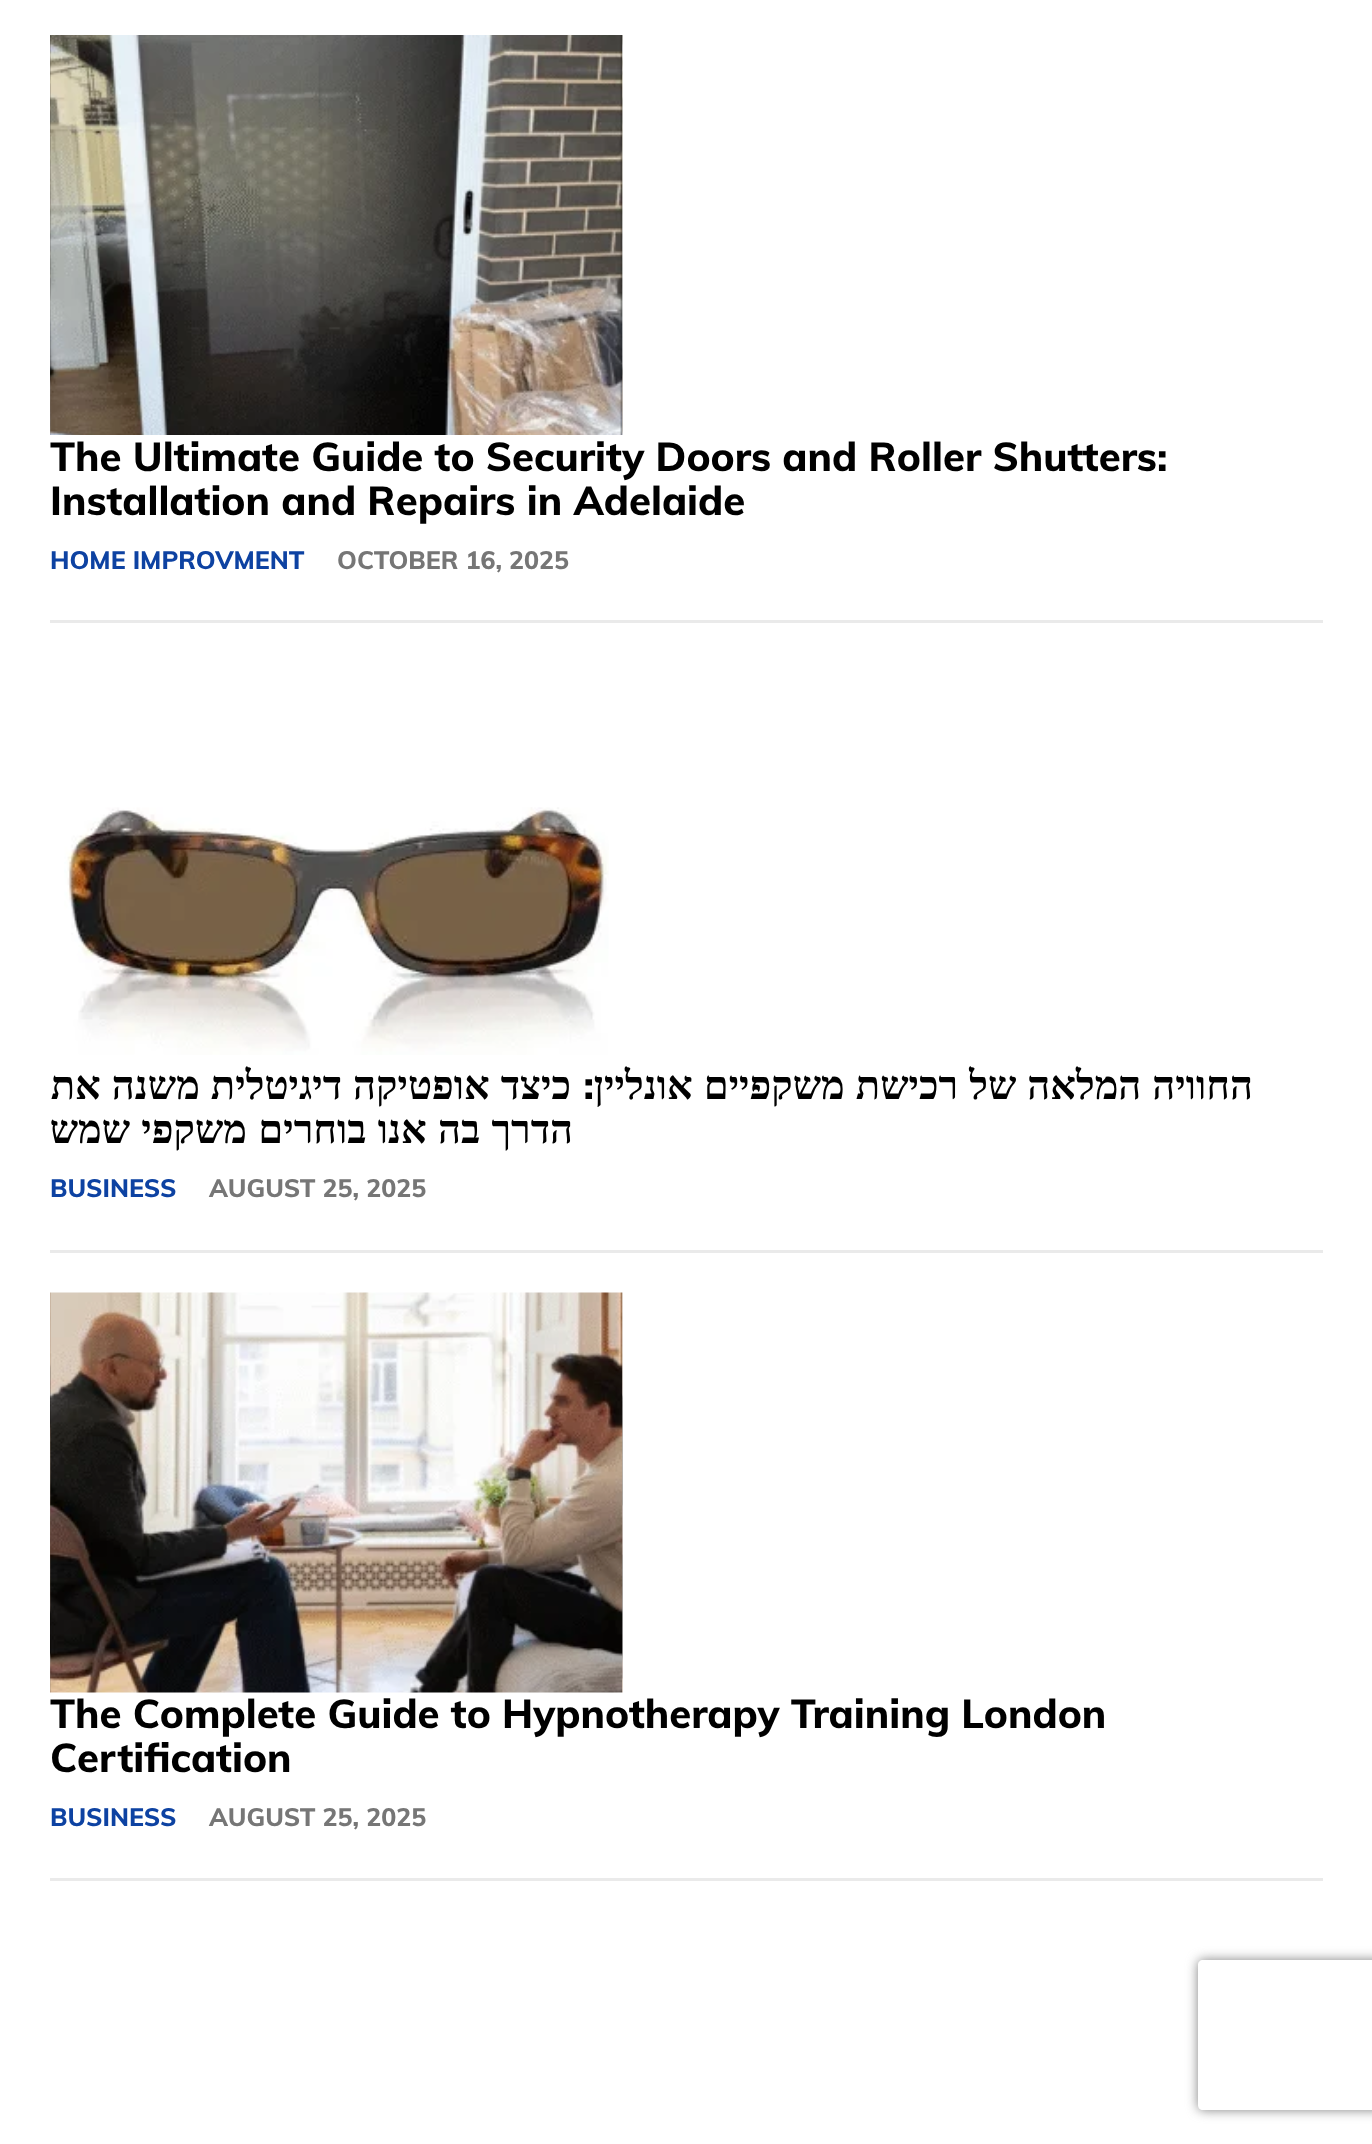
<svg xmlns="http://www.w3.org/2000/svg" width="1372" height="2144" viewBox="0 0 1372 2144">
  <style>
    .t1 { font: 800 40px Muli; fill: #000; }
    .t2 { font: 800 25px Muli; fill: #0d42a2; }
    .t3 { font: 800 25px Muli; fill: #767676; }
    .t4 { font: bold 40px Liberation Serif; direction: rtl; fill: #000; }
    .t5 { font: 800 40px Muli; direction: rtl; fill: #000; }
  </style>
  <defs>
    <clipPath id="clip1"><path d="M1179 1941H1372V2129H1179ZM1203 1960H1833C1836 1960 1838 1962 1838 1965V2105C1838 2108 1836 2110 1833 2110H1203C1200 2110 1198 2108 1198 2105V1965C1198 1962 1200 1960 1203 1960Z" clip-rule="evenodd"/></clipPath>
  </defs>
  <rect width="100%" height="100%" fill="#fff"/>
  <image x="50" y="35" width="573" height="400" href="images/1.png"/>
  <text x="50" y="471" class="t1">The Ultimate Guide to Security Doors and Roller Shutters:</text>
  <text x="50" y="515" class="t1">Installation and Repairs in Adelaide</text>
  <text x="50" y="569" class="t2">HOME IMPROVMENT</text>
  <text x="337" y="569" class="t3">OCTOBER 16, 2025</text>
  <rect x="50" y="620" width="1273" height="3" fill="#eaeaea"/>
  <image x="64" y="807" width="545" height="248" href="images/2.png"/>
  <text x="571" y="1099" word-spacing="1" class="t4">כיצד אופטיקה דיגיטלית משנה את</text>
  <text x="594" y="1099" class="t5">:</text>
  <text x="1253" y="1099" word-spacing="1" class="t4">החוויה המלאה של רכישת משקפיים אונליין</text>
  <text x="573" y="1143" word-spacing="1.25" class="t4">הדרך בה אנו בוחרים משקפי שמש</text>
  <text x="50" y="1197" class="t2">BUSINESS</text>
  <text x="209" y="1197" class="t3">AUGUST 25, 2025</text>
  <rect x="50" y="1250" width="1273" height="3" fill="#eaeaea"/>
  <image x="50" y="1292" width="573" height="401" href="images/3.png"/>
  <text x="50" y="1728" class="t1">The Complete Guide to Hypnotherapy Training London</text>
  <text x="50" y="1772" class="t1">Certification</text>
  <text x="50" y="1826" class="t2">BUSINESS</text>
  <text x="209" y="1826" class="t3">AUGUST 25, 2025</text>
  <rect x="50" y="1878" width="1273" height="3" fill="#eaeaea"/>
  <g clip-path="url(#clip1)">
    <rect x="1198" y="1960" width="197" height="150" rx="5" fill="#808080" filter="blur(6px)"/>
  </g>
</svg>
